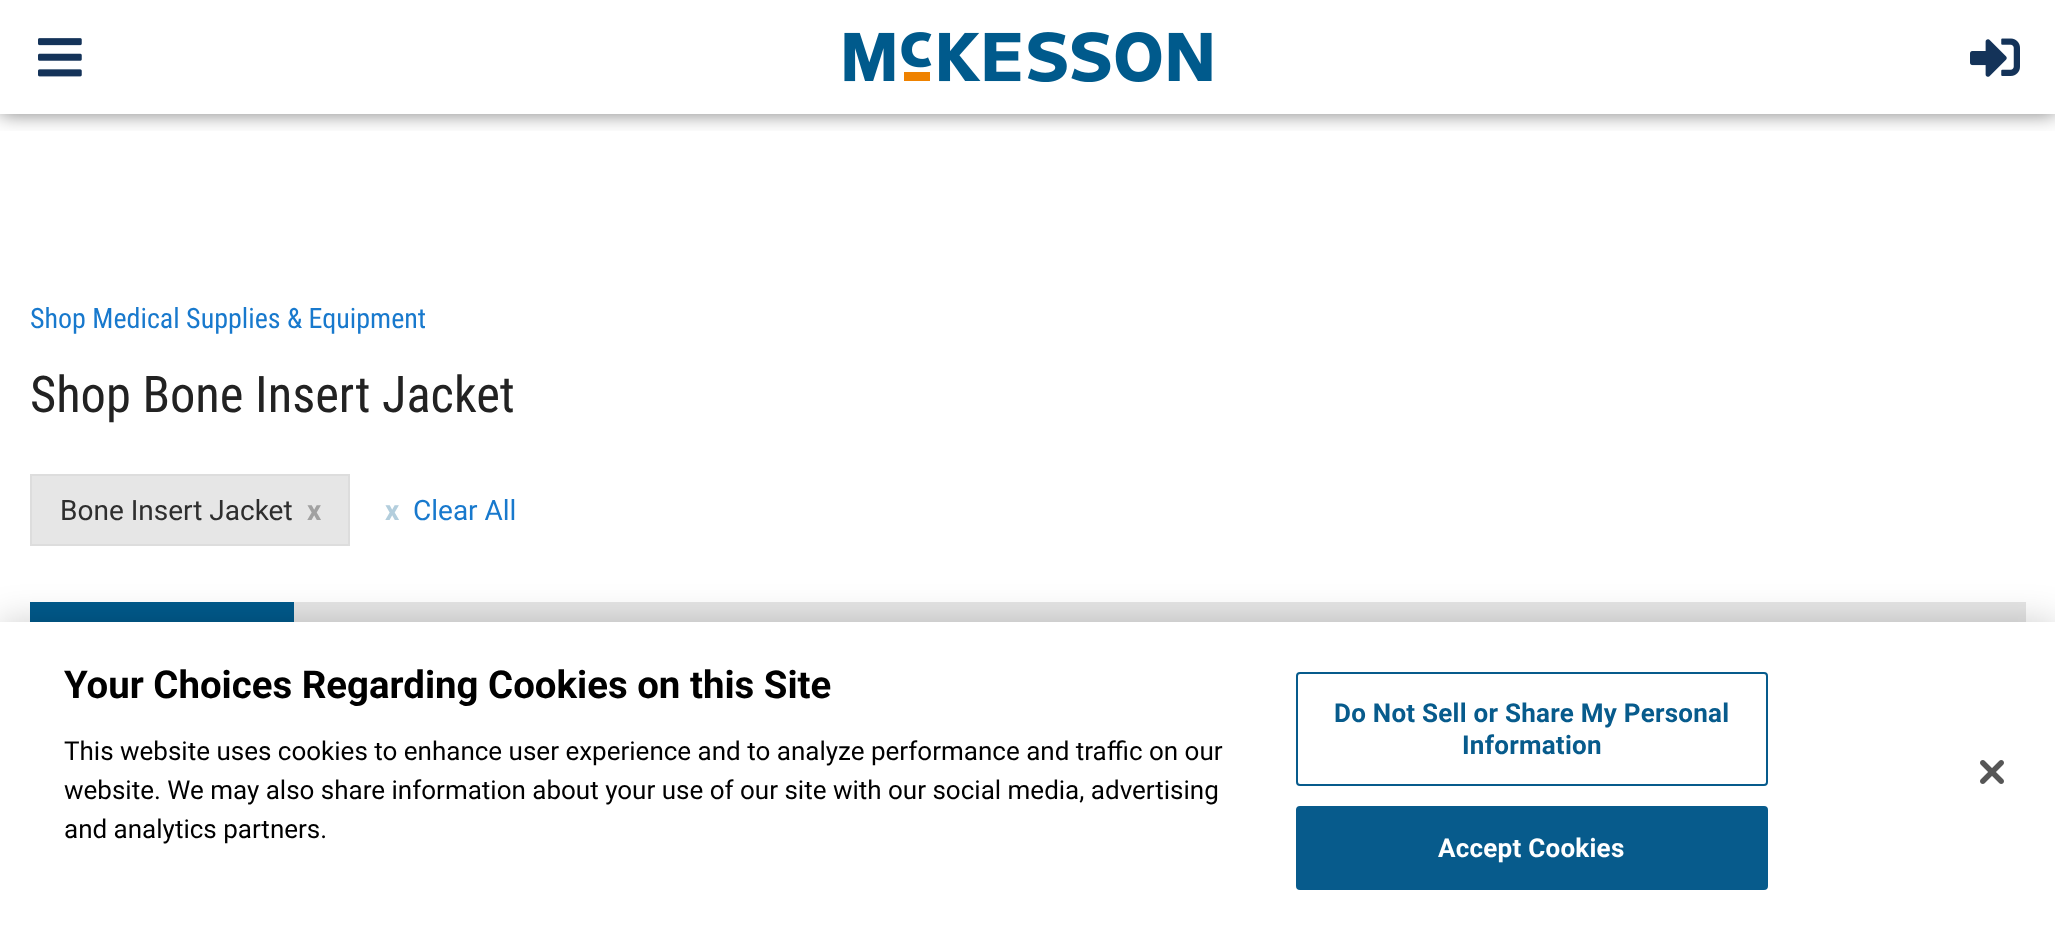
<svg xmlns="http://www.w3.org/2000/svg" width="2055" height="930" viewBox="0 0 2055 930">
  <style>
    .t1 { font: 28px Roboto Condensed; fill: #1879cd; }
    .t2 { font: 50.5px Roboto Condensed; fill: #222; }
    .t3 { font: 28px Roboto; fill: #2e2e2e; }
    .t4 { font: bold 28px Roboto; fill: #a1a1a1; }
    .t5 { font: bold 28px Roboto; fill: #b3cedd; }
    .t6 { font: 28px Roboto; fill: #1879cd; }
    .t7 { font: bold 38.4px Roboto; fill: #000; }
    .t8 { font: 26px Roboto; fill: #000; }
    .t9 { font: bold 26px Roboto; letter-spacing: 0.25px; fill: #075b8c; }
    .t10 { font: bold 26px Roboto; letter-spacing: 0.25px; fill: #fff; }
  </style>
  <defs>
    <clipPath id="clip1"><rect x="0" y="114" width="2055" height="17"/></clipPath>
  </defs>
  <rect width="100%" height="100%" fill="#fff"/>
  <g clip-path="url(#clip1)">
    <rect x="0" y="0" width="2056" height="114" fill="#00000080" filter="blur(10px)"/>
  </g>
  <image x="38" y="38" width="44" height="39" href="images/1.png"/>
  <image x="844" y="32" width="368" height="50" href="images/2.png"/>
  <image x="1970" y="38" width="50" height="39" href="images/3.png"/>
  <text x="30" y="328" class="t1">Shop Medical Supplies &amp; Equipment</text>
  <text x="30" y="412" class="t2">Shop Bone Insert Jacket</text>
  <rect x="31" y="475" width="318" height="70" fill="#e6e6e6" stroke="#ddd" stroke-width="2"/>
  <text x="60" y="520" class="t3">Bone Insert Jacket</text>
  <text x="307" y="520" class="t4">x</text>
  <text x="385" y="520" class="t5">x</text>
  <text x="413" y="520" class="t6">Clear All</text>
  <rect x="294" y="602" width="1732" height="20" fill="#e6e6e6"/>
  <rect x="30" y="602" width="264" height="20" fill="#005a8c"/>
  <rect x="0" y="622" width="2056" height="308" fill="#00000033" filter="blur(18px)"/>
  <rect x="0" y="622" width="2055" height="308" fill="#fff"/>
  <text x="64" y="698" class="t7">Your Choices Regarding Cookies on this Site</text>
  <text x="64" y="760" class="t8">This website uses cookies to enhance user experience and to analyze performance and traffic on our</text>
  <text x="64" y="799" class="t8">website. We may also share information about your use of our site with our social media, advertising</text>
  <text x="64" y="838" class="t8">and analytics partners.</text>
  <rect x="1297" y="673" width="470" height="112" rx="3" fill="none" stroke="#075b8c" stroke-width="2"/>
  <text x="1334" y="722" class="t9">Do Not Sell or Share My Personal</text>
  <text x="1462" y="754" class="t9">Information</text>
  <rect x="1297" y="807" width="470" height="82" rx="3" fill="#075b8c" stroke="#075b8c" stroke-width="2"/>
  <text x="1438" y="857" class="t10">Accept Cookies</text>
  <image x="1980" y="760" width="24" height="24" href="images/4.png"/>
</svg>
